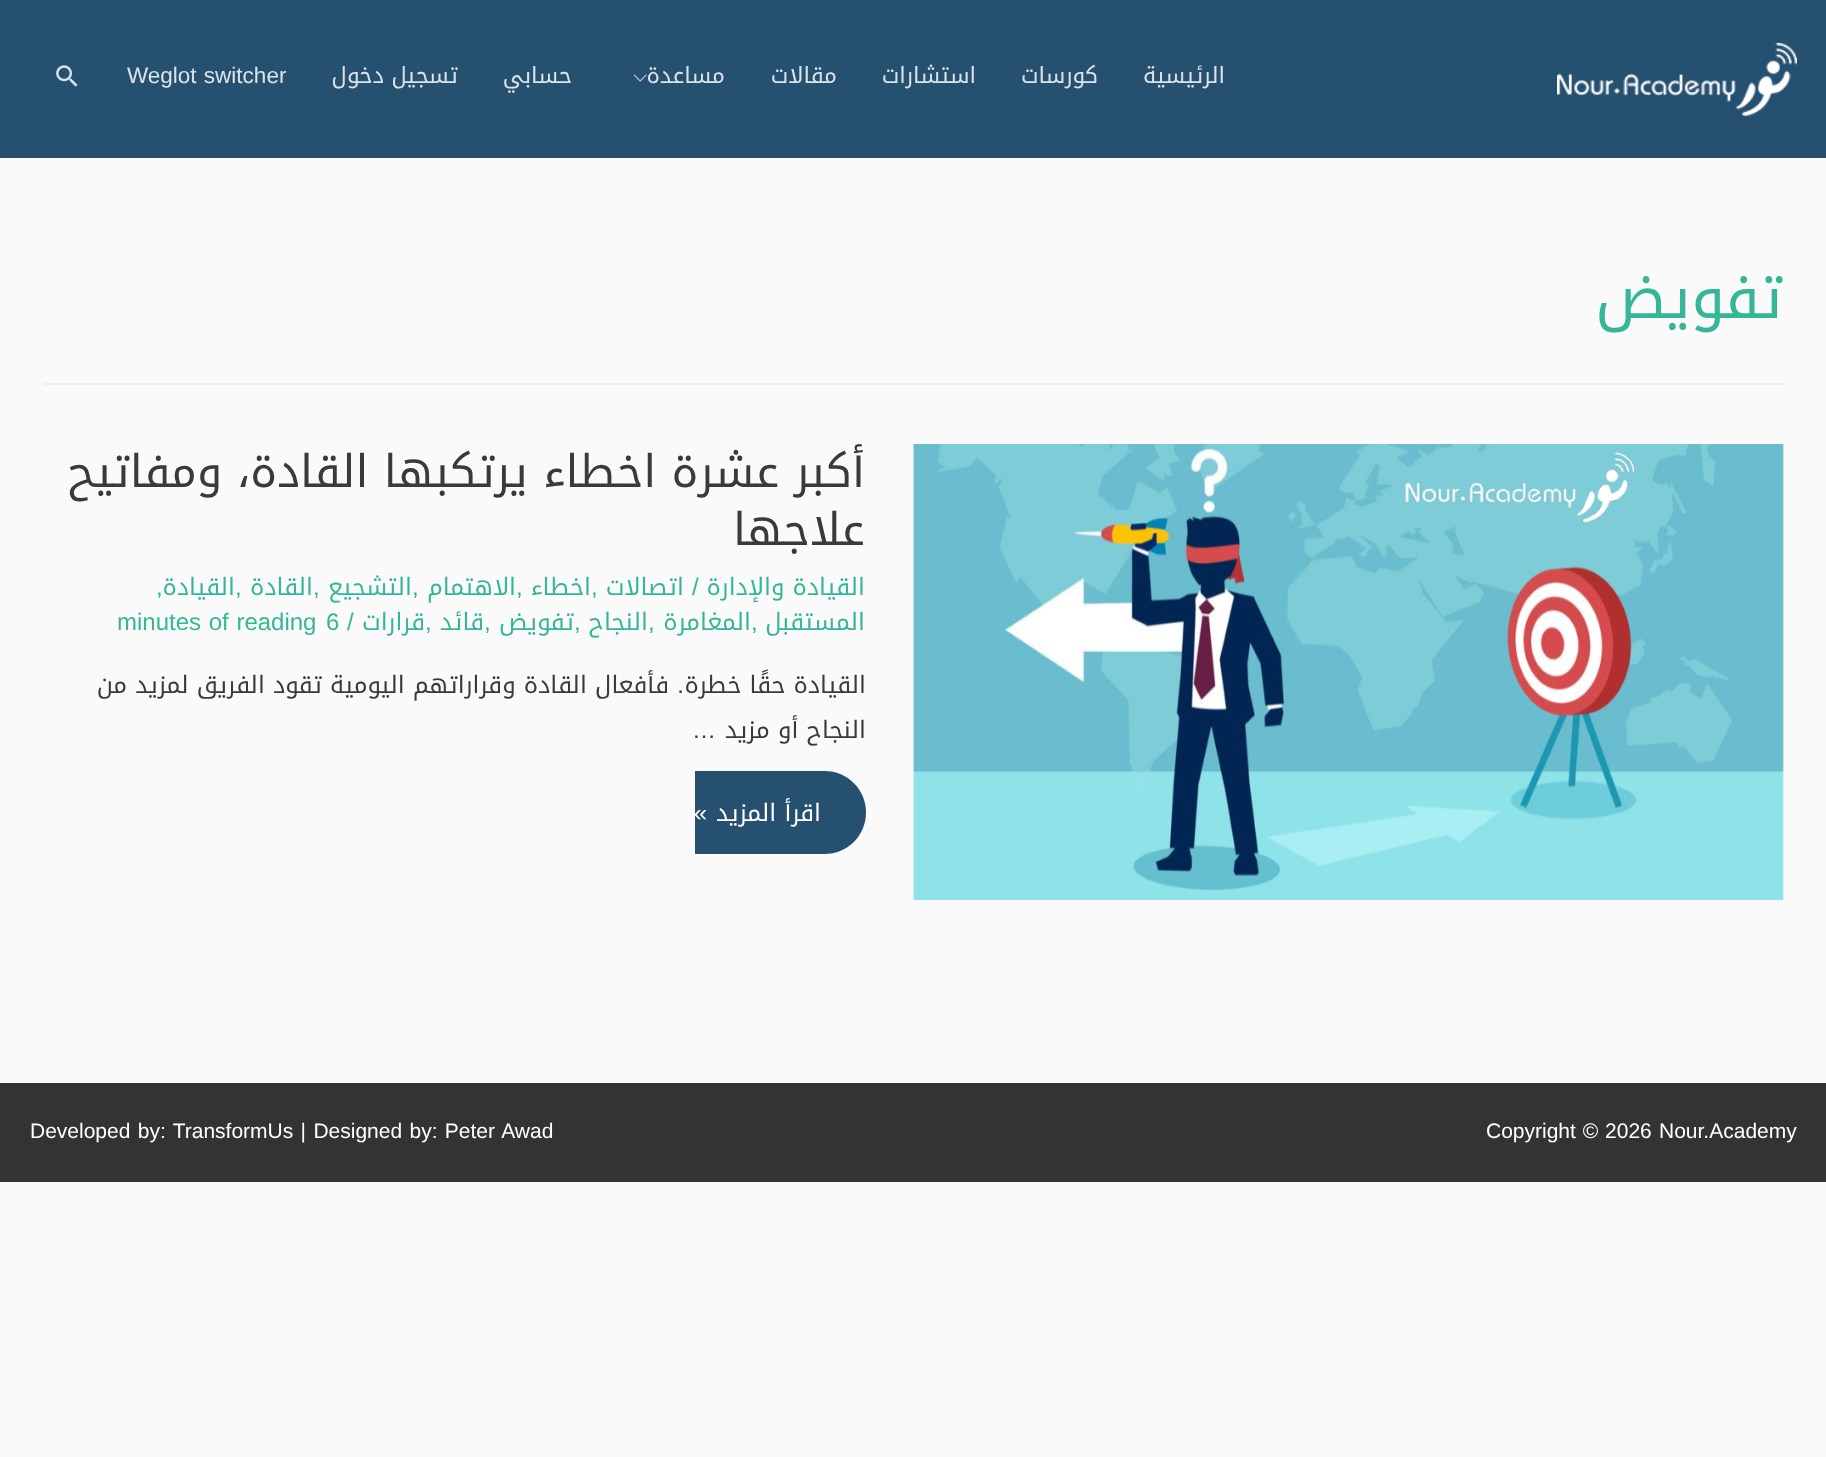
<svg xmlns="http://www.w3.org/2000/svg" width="1826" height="1457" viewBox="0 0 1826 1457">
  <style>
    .t1 { font: 22.5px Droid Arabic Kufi; direction: rtl; fill: #dce3e8; }
    .t2 { font: 22.5px Liberation Sans; fill: #dce3e8; }
    .t3 { font: 60px Droid Arabic Kufi; direction: rtl; fill: #35b797; }
    .t4 { font: 45px Droid Arabic Kufi; direction: rtl; fill: #3a3a3a; }
    .t5 { font: 24px Droid Arabic Kufi; direction: rtl; fill: #35b797; }
    .t6 { font: 24px Liberation Sans; fill: #35b797; }
    .t7 { font: 24px Droid Arabic Kufi; direction: rtl; fill: #3a3a3a; }
    .t8 { font: 24px Liberation Sans; direction: rtl; fill: #3a3a3a; }
    .t9 { font: 24px Droid Arabic Kufi; direction: rtl; fill: #fff; }
    .t10 { font: 24px Liberation Sans; direction: rtl; fill: #fff; }
    .t11 { font: 21px Liberation Sans; fill: #fff; }
  </style>
  <rect width="100%" height="100%" fill="#fafafa"/>
  <rect x="0" y="0" width="1826" height="158" fill="#265070"/>
  <image x="1557" y="42" width="240" height="75" href="images/1.png"/>
  <text x="1225" y="83" class="t1">الرئيسية</text>
  <text x="1098" y="83" class="t1">كورسات</text>
  <text x="976" y="83" class="t1">استشارات</text>
  <text x="837" y="83" class="t1">مقالات</text>
  <text x="725" y="83" class="t1">مساعدة</text>
  <image x="633" y="74" width="14" height="8" href="images/2.png"/>
  <text x="572" y="83" class="t1">حسابي</text>
  <text x="458" y="83" class="t1">تسجيل دخول</text>
  <text x="127" y="83" word-spacing="1" class="t2">Weglot switcher</text>
  <image x="56" y="65" width="22" height="22" href="images/3.png"/>
  <rect x="44" y="383" width="1740" height="2" fill="#eee"/>
  <text x="1783" y="318" class="t3">تفويض</text>
  <image x="913" y="444" width="871" height="456" href="images/4.png"/>
  <text x="865" y="487" class="t4">أكبر عشرة اخطاء يرتكبها القادة، ومفاتيح</text>
  <text x="865" y="545" class="t4">علاجها</text>
  <text x="865" y="595" class="t5">القيادة والإدارة</text>
  <text x="692" y="595" class="t6">/</text>
  <text x="684" y="595" class="t5">اتصالات</text>
  <text x="591" y="595" class="t6">,</text>
  <text x="591" y="595" class="t5">اخطاء</text>
  <text x="516" y="595" class="t6">,</text>
  <text x="516" y="595" class="t5">الاهتمام</text>
  <text x="412" y="595" class="t6">,</text>
  <text x="412" y="595" class="t5">التشجيع</text>
  <text x="313" y="595" class="t6">,</text>
  <text x="313" y="595" class="t5">القادة</text>
  <text x="235" y="595" class="t6">,</text>
  <text x="235" y="595" class="t5">القيادة</text>
  <text x="156" y="595" class="t6">,</text>
  <text x="865" y="630" class="t5">المستقبل</text>
  <text x="751" y="630" class="t6">,</text>
  <text x="751" y="630" class="t5">المغامرة</text>
  <text x="648" y="630" class="t6">,</text>
  <text x="648" y="630" class="t5">النجاح</text>
  <text x="574" y="630" class="t6">,</text>
  <text x="574" y="630" class="t5">تفويض</text>
  <text x="484" y="630" class="t6">,</text>
  <text x="484" y="630" class="t5">قائد</text>
  <text x="425" y="630" class="t6">,</text>
  <text x="425" y="630" class="t5">قرارات</text>
  <text x="347" y="630" class="t6">/</text>
  <text x="326" y="630" class="t6">6</text>
  <text x="117" y="630" word-spacing="1" class="t6">minutes of reading</text>
  <text x="866" y="693" class="t7">القيادة حقًا خطرة</text>
  <text x="684" y="693" class="t8">.</text>
  <text x="669" y="693" class="t7">فأفعال القادة وقراراتهم اليومية تقود الفريق لمزيد من</text>
  <text x="866" y="738" class="t7">النجاح أو مزيد</text>
  <text x="716" y="738" class="t8">…</text>
  <path d="M695 771H824.5C847.5 771 866 789.5 866 812.5C866 835.5 847.5 854 824.5 854H695Z" fill="#265070"/>
  <text x="821" y="821" class="t9">اقرأ المزيد</text>
  <text x="707" y="821" class="t10">»</text>
  <rect x="0" y="1082" width="1826" height="1" fill="#fff"/>
  <rect x="0" y="1083" width="1826" height="99" fill="#333"/>
  <text x="1659" y="1138" class="t11">Nour.Academy</text>
  <text x="1486" y="1138" word-spacing="1" class="t11">Copyright © 2026</text>
  <text x="30" y="1138" word-spacing="1.5" class="t11">Developed by: TransformUs | Designed by: Peter Awad</text>
</svg>
